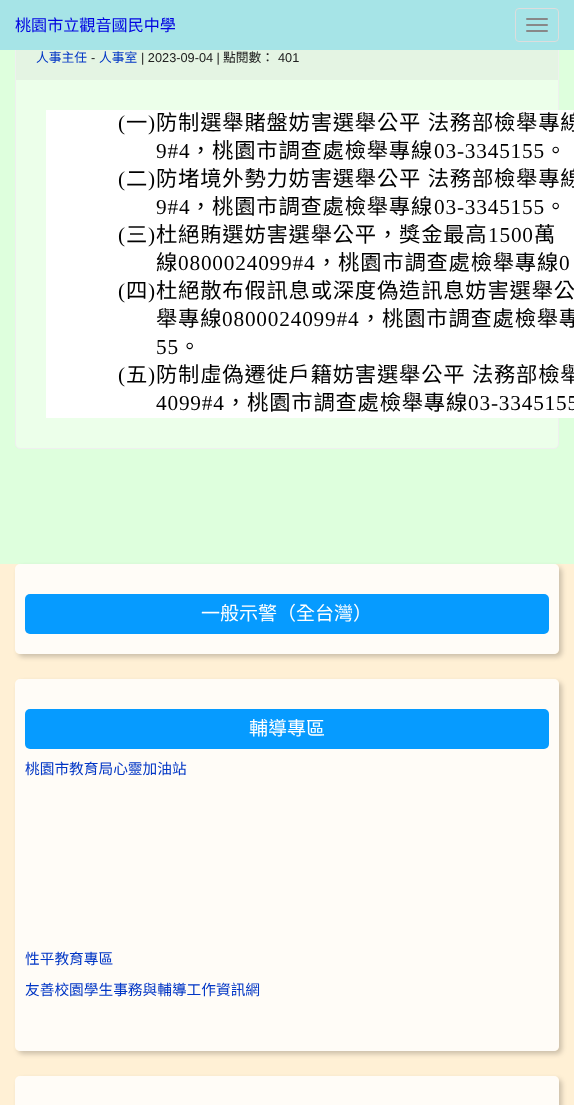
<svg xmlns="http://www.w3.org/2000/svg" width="574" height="1105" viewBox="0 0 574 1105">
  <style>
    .t1 { font: 16.1px Noto Sans CJK TC; fill: #0002e1; }
    .t2 { font: 12.75px Noto Sans CJK TC; fill: #0035c5; }
    .t3 { font: 12.75px Liberation Sans; fill: #202020; }
    .t4 { font: 12.75px Noto Sans CJK TC; fill: #202020; }
    .t5 { font: 21.3px Liberation Serif; letter-spacing: 0.8px; fill: #000; }
    .t6 { font: 21.3px Noto Sans CJK TC; letter-spacing: 0.8px; fill: #000; }
    .t7 { font: 19px Noto Sans CJK TC; fill: #fff; }
    .t8 { font: 14.7px Noto Sans CJK TC; fill: #0035c5; }
  </style>
  <defs>
    <clipPath id="clip1"><path d="M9 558H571V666H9ZM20 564H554C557 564 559 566 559 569V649C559 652 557 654 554 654H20C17 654 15 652 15 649V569C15 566 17 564 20 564Z" clip-rule="evenodd"/></clipPath>
    <clipPath id="clip2"><path d="M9 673H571V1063H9ZM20 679H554C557 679 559 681 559 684V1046C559 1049 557 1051 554 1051H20C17 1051 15 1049 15 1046V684C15 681 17 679 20 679Z" clip-rule="evenodd"/></clipPath>
    <clipPath id="clip3"><path d="M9 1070H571V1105H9ZM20 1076H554C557 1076 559 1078 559 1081V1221C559 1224 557 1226 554 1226H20C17 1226 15 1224 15 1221V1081C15 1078 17 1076 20 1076Z" clip-rule="evenodd"/></clipPath>
  </defs>
  <rect width="100%" height="100%" fill="#deffdd"/>
  <rect x="15.5" y="35.5" width="543" height="413" rx="4.5" fill="#ecffea" stroke="#efefef"/>
  <rect x="0" y="0" width="574" height="50" fill="#a6e4e7"/>
  <text x="15" y="31" class="t1">桃園市立觀音國民中學</text>
  <rect x="515.5" y="8.5" width="43" height="33" rx="3.5" fill="none" stroke="#ddd"/>
  <rect x="526" y="18" width="22" height="2" rx="1" fill="#888"/>
  <rect x="526" y="24" width="22" height="2" rx="1" fill="#888"/>
  <rect x="526" y="30" width="22" height="2" rx="1" fill="#888"/>
  <rect x="16" y="50" width="542" height="30" fill="#c8c8c833"/>
  <text x="36" y="62" class="t2">人事主任</text>
  <text x="91" y="62" class="t3">-</text>
  <text x="99" y="62" class="t2">人事室</text>
  <text x="141" y="62" class="t3">| 2023-09-04 |</text>
  <text x="223" y="62" class="t4">點閱數：</text>
  <text x="278" y="62" class="t3">401</text>
  <rect x="46" y="110" width="528" height="308" fill="#fff"/>
  <text x="118" y="130" class="t5">(</text>
  <text x="126" y="130" class="t6">一</text>
  <text x="148" y="130" class="t5">)</text>
  <text x="156" y="130" word-spacing="1" class="t6">防制選舉賭盤妨害選舉公平 法務部檢舉專線</text>
  <text x="156" y="158" class="t5">9#4</text>
  <text x="190" y="158" class="t6">，桃園市調查處檢舉專線</text>
  <text x="434" y="158" class="t5">03-3345155</text>
  <text x="545" y="158" class="t6">。</text>
  <text x="118" y="186" class="t5">(</text>
  <text x="126" y="186" class="t6">二</text>
  <text x="148" y="186" class="t5">)</text>
  <text x="156" y="186" word-spacing="1" class="t6">防堵境外勢力妨害選舉公平 法務部檢舉專線</text>
  <text x="156" y="214" class="t5">9#4</text>
  <text x="190" y="214" class="t6">，桃園市調查處檢舉專線</text>
  <text x="434" y="214" class="t5">03-3345155</text>
  <text x="545" y="214" class="t6">。</text>
  <text x="118" y="242" class="t5">(</text>
  <text x="126" y="242" class="t6">三</text>
  <text x="148" y="242" class="t5">)</text>
  <text x="156" y="242" class="t6">杜絕賄選妨害選舉公平，獎金最高</text>
  <text x="488" y="242" class="t5">1500</text>
  <text x="534" y="242" word-spacing="1" class="t6">萬</text>
  <text x="156" y="270" class="t6">線</text>
  <text x="178" y="270" class="t5">0800024099#4</text>
  <text x="316" y="270" class="t6">，桃園市調查處檢舉專線</text>
  <text x="559" y="270" class="t5">0</text>
  <text x="118" y="298" class="t5">(</text>
  <text x="126" y="298" class="t6">四</text>
  <text x="148" y="298" class="t5">)</text>
  <text x="156" y="298" word-spacing="1" class="t6">杜絕散布假訊息或深度偽造訊息妨害選舉公</text>
  <text x="156" y="326" class="t6">舉專線</text>
  <text x="222" y="326" class="t5">0800024099#4</text>
  <text x="360" y="326" class="t6">，桃園市調查處檢舉專</text>
  <text x="156" y="354" class="t5">55</text>
  <text x="179" y="354" class="t6">。</text>
  <text x="118" y="382" class="t5">(</text>
  <text x="126" y="382" class="t6">五</text>
  <text x="148" y="382" class="t5">)</text>
  <text x="156" y="382" word-spacing="1" class="t6">防制虛偽遷徙戶籍妨害選舉公平 法務部檢舉</text>
  <text x="156" y="410" class="t5">4099#4</text>
  <text x="225" y="410" class="t6">，桃園市調查處檢舉專線</text>
  <text x="468" y="410" class="t5">03-3345155</text>
  <rect x="0" y="564" width="574" height="541" fill="#fff0d5"/>
  <g clip-path="url(#clip1)">
    <rect x="18" y="567" width="544" height="90" rx="5" fill="#00000033" filter="blur(2.5px)"/>
  </g>
  <rect x="15" y="564" width="544" height="90" rx="5" fill="#ffffffcc"/>
  <rect x="25" y="594" width="524" height="40" rx="5" fill="#069bff"/>
  <text x="201" y="620" class="t7">一般示警（全台灣）</text>
  <g clip-path="url(#clip2)">
    <rect x="18" y="682" width="544" height="372" rx="5" fill="#00000033" filter="blur(2.5px)"/>
  </g>
  <rect x="15" y="679" width="544" height="372" rx="5" fill="#ffffffcc"/>
  <rect x="25" y="709" width="524" height="40" rx="5" fill="#069bff"/>
  <text x="249" y="735" class="t7">輔導專區</text>
  <text x="25" y="774" class="t8">桃園市教育局心靈加油站</text>
  <text x="25" y="964" class="t8">性平教育專區</text>
  <text x="25" y="995" class="t8">友善校園學生事務與輔導工作資訊網</text>
  <g clip-path="url(#clip3)">
    <rect x="18" y="1079" width="544" height="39" rx="5" fill="#00000033" filter="blur(2.5px)"/>
  </g>
  <rect x="15" y="1076" width="544" height="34" rx="5" fill="#ffffffcc"/>
</svg>
